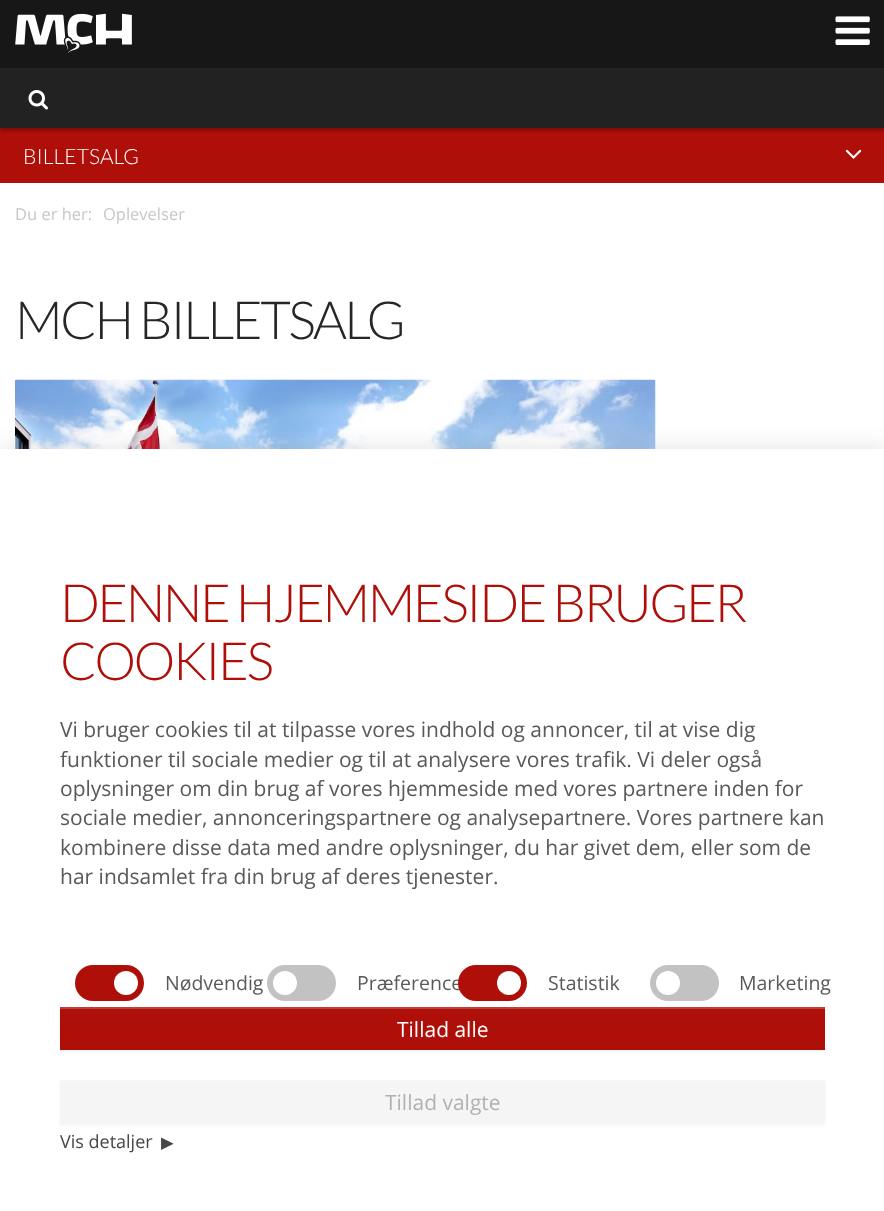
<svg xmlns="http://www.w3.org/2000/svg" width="884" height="1211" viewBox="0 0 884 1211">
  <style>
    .t1 { font: 300 21px Lato; fill: #fff; }
    .t2 { font: 16.5px Open Sans; fill: #c7c7c7; }
    .t3 { font: 300 52.5px Lato; letter-spacing: -2.6px; fill: #262626; }
    .t4 { font: 300 52.5px Lato; letter-spacing: -2.6px; fill: #ae0f09; }
    .t5 { font: 21px Open Sans; fill: #595959; }
    .t6 { font: 19.5px Open Sans; fill: #595959; }
    .t7 { font: 21px Open Sans; fill: #fff; }
    .t8 { font: 21px Open Sans; fill: #b1b1b1; }
    .t9 { font: 18px Open Sans; fill: #474747; }
    .t10 { font: 16.5px DejaVu Sans; fill: #474747; }
  </style>
  <rect width="100%" height="100%" fill="#fff"/>
  <rect x="0" y="128" width="884" height="55" fill="#ae0f09"/>
  <rect x="0" y="3" width="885" height="128" fill="#00000040" filter="blur(1.5px)"/>
  <rect x="0" y="0" width="884" height="68" fill="#171717"/>
  <image x="15" y="13" width="117" height="40" href="images/1.png"/>
  <image x="835" y="16" width="35" height="29" href="images/2.png"/>
  <rect x="0" y="68" width="884" height="60" fill="#222"/>
  <image x="28" y="90" width="20" height="20" href="images/3.png"/>
  <text x="23" y="164" class="t1">BILLETSALG</text>
  <image x="845" y="149" width="17" height="10" href="images/4.png"/>
  <text x="15" y="220" class="t2">Du er her:</text>
  <text x="103" y="220" class="t2">Oplevelser</text>
  <text x="15" y="339" class="t3">MCH BILLETSALG</text>
  <image x="15" y="379" width="641" height="70" href="images/5.png"/>
  <rect x="-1" y="447" width="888" height="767" fill="#0000001a" filter="blur(11px)"/>
  <rect x="0" y="449" width="884" height="762" fill="#fff"/>
  <text x="60" y="622" class="t4">DENNE HJEMMESIDE BRUGER</text>
  <text x="60" y="680" class="t4">COOKIES</text>
  <text x="60" y="737" class="t5">Vi bruger cookies til at tilpasse vores indhold og annoncer, til at vise dig</text>
  <text x="60" y="767" class="t5">funktioner til sociale medier og til at analysere vores trafik. Vi deler også</text>
  <text x="60" y="796" class="t5">oplysninger om din brug af vores hjemmeside med vores partnere inden for</text>
  <text x="60" y="825" class="t5">sociale medier, annonceringspartnere og analysepartnere. Vores partnere kan</text>
  <text x="60" y="855" class="t5">kombinere disse data med andre oplysninger, du har givet dem, eller som de</text>
  <text x="60" y="884" class="t5">har indsamlet fra din brug af deres tjenester.</text>
  <rect x="75" y="965" width="69" height="36" rx="18" fill="#ae0f09"/>
  <circle cx="126" cy="983" r="12" fill="#fff"/>
  <text x="165" y="990" class="t6">Nødvendig</text>
  <rect x="267" y="965" width="69" height="36" rx="18" fill="#c2c2c2"/>
  <circle cx="285" cy="983" r="12" fill="#fff"/>
  <text x="357" y="990" class="t6">Præference</text>
  <rect x="458" y="965" width="69" height="36" rx="18" fill="#ae0f09"/>
  <circle cx="509" cy="983" r="12" fill="#fff"/>
  <text x="548" y="990" class="t6">Statistik</text>
  <rect x="650" y="965" width="69" height="36" rx="18" fill="#c2c2c2"/>
  <circle cx="668" cy="983" r="12" fill="#fff"/>
  <text x="739" y="990" class="t6">Marketing</text>
  <rect x="60" y="1008" width="765" height="44" fill="#0000000d" filter="blur(1.5px)"/>
  <rect x="60" y="1009" width="765" height="41" fill="#ae0f09"/>
  <rect x="60" y="1007" width="765" height="2" fill="#be3f3a"/>
  <text x="397" y="1037" class="t7">Tillad alle</text>
  <rect x="60" y="1082" width="765" height="43" fill="#0000000d" filter="blur(1.5px)"/>
  <rect x="60" y="1082" width="765" height="42" fill="#f5f5f5"/>
  <rect x="60" y="1080" width="765" height="2" fill="#f7f7f7"/>
  <text x="385" y="1110" class="t8">Tillad valgte</text>
  <text x="60" y="1148" class="t9">Vis detaljer</text>
  <text x="161" y="1148" class="t10">▶</text>
</svg>
